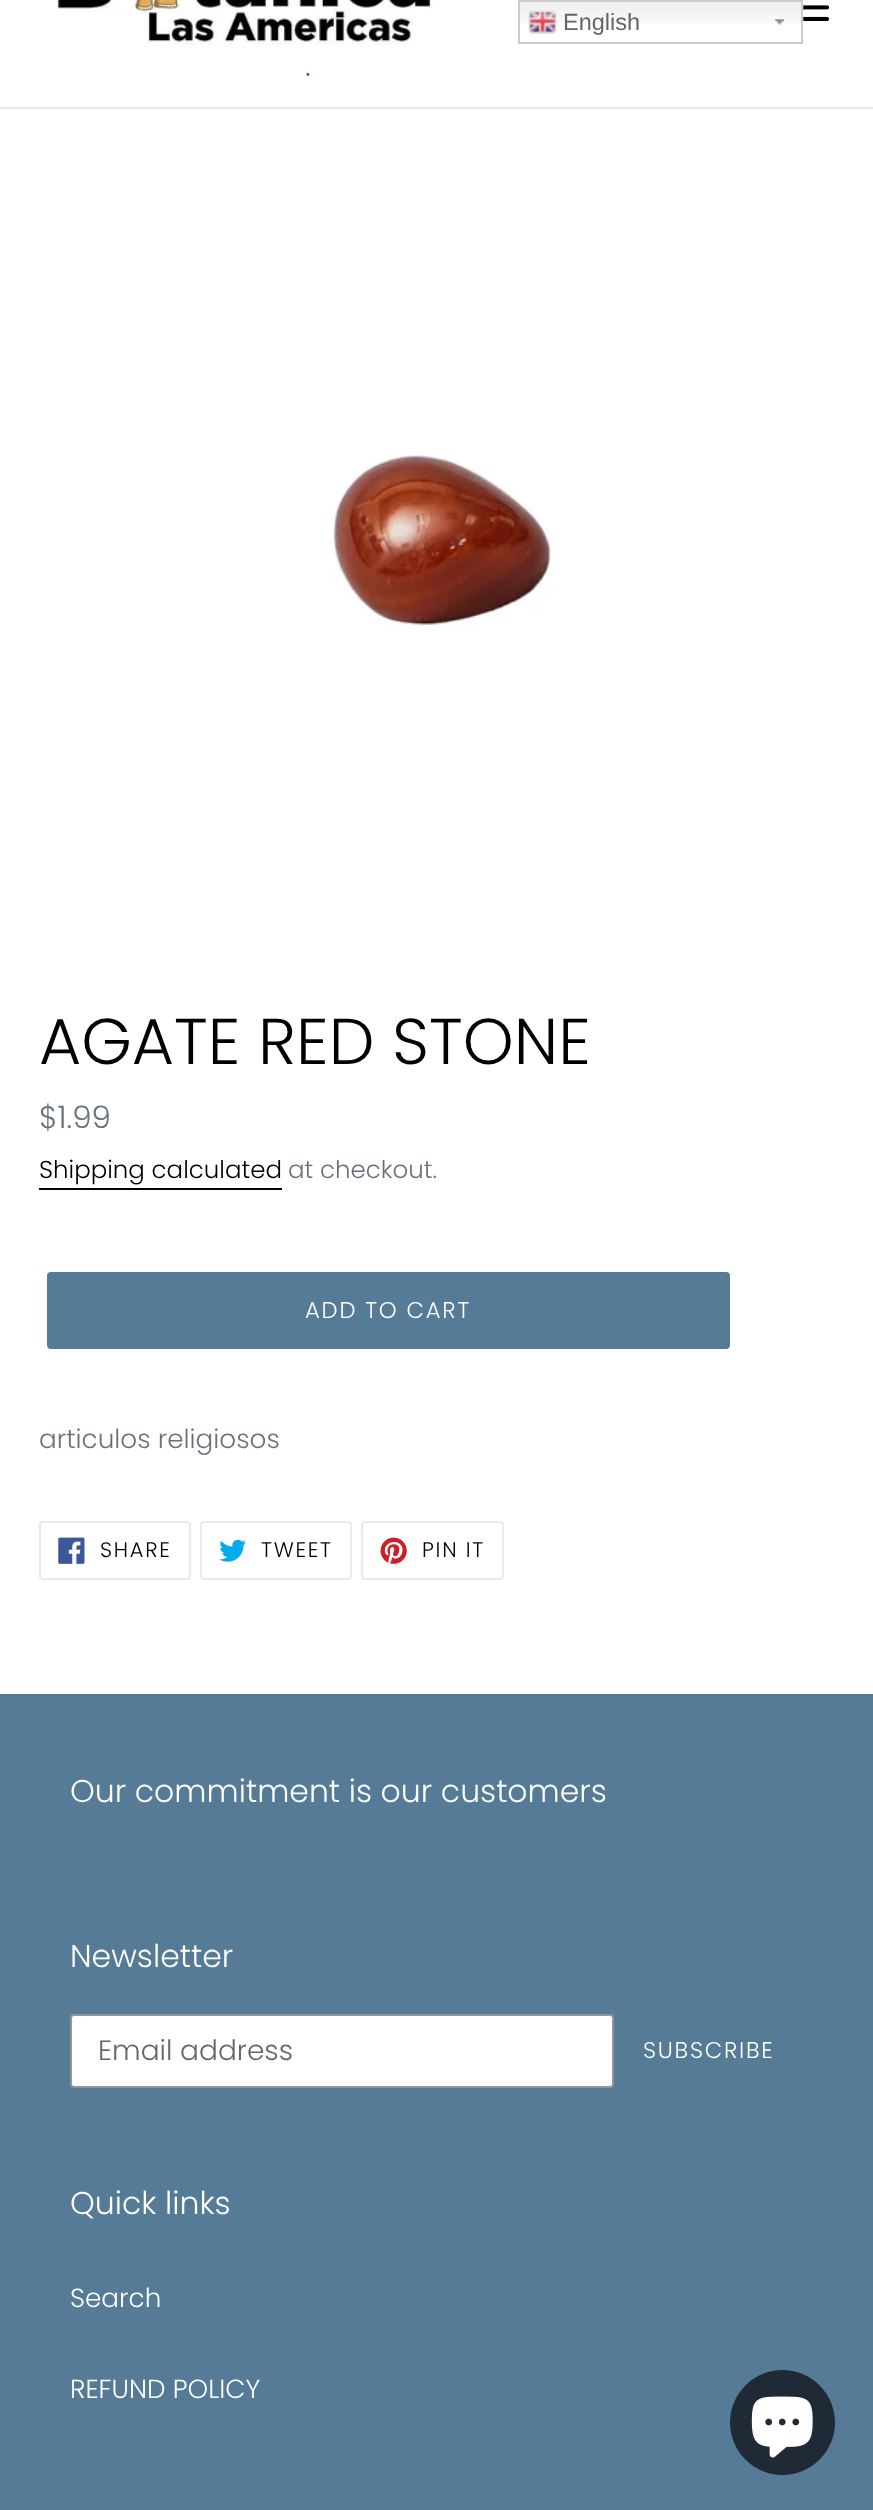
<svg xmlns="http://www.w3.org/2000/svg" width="873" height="2510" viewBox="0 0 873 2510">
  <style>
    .t1 { font: 23.5px Liberation Sans; fill: #666; }
    .t2 { font: 300 64.75px Poppins; fill: #000; }
    .t3 { font: 300 31px Poppins; fill: #69727b; }
    .t4 { font: 300 24.5px Poppins; fill: #000; }
    .t5 { font: 300 24.5px Poppins; fill: #69727b; }
    .t6 { font: 300 22.75px Poppins; letter-spacing: 1.75px; fill: #fff; }
    .t7 { font: 300 26.25px Poppins; fill: #69727b; }
    .t8 { font: 300 21px Poppins; letter-spacing: 1.75px; fill: #000; }
    .t9 { font: 300 31.5px Poppins; fill: #fff; }
    .t10 { font: 300 28px Poppins; fill: #666; }
    .t11 { font: 300 26.25px Poppins; fill: #fff; }
  </style>
  <rect width="100%" height="100%" fill="#fff"/>
  <rect x="0" y="107" width="873" height="2" fill="#e8e9eb"/>
  <image x="57" y="0" width="376" height="77" href="images/1.png"/>
  <image x="803" y="5" width="27" height="16" href="images/2.png"/>
  <image x="520" y="0" width="284" height="24" href="images/3.png"/>
  <image x="775" y="19" width="9" height="6" href="images/4.png"/>
  <rect x="519" y="1" width="283" height="42" fill="none" stroke="#ccc" stroke-width="2"/>
  <image x="528" y="10" width="29" height="25" href="images/5.png"/>
  <text x="563" y="30" class="t1">English</text>
  <image x="331" y="455" width="224" height="174" href="images/6.png"/>
  <text x="39" y="1064" class="t2">AGATE RED STONE</text>
  <text x="39" y="1128" class="t3">$1.99</text>
  <text x="39" y="1178" class="t4">Shipping calculated</text>
  <rect x="39" y="1188" width="243" height="2" fill="#000"/>
  <text x="288" y="1178" class="t5">at checkout.</text>
  <rect x="47" y="1272" width="683" height="77" rx="4" fill="#557b97"/>
  <text x="305" y="1318" class="t6">ADD TO CART</text>
  <text x="39" y="1448" class="t7">articulos religiosos</text>
  <rect x="40" y="1522" width="150" height="57" rx="3" fill="none" stroke="#e8e9eb" stroke-width="2"/>
  <image x="58" y="1537" width="27" height="27" href="images/7.png"/>
  <text x="100" y="1557" class="t8">SHARE</text>
  <rect x="201" y="1522" width="150" height="57" rx="3" fill="none" stroke="#e8e9eb" stroke-width="2"/>
  <image x="219" y="1539" width="27" height="23" href="images/8.png"/>
  <text x="261" y="1557" class="t8">TWEET</text>
  <rect x="362" y="1522" width="141" height="57" rx="3" fill="none" stroke="#e8e9eb" stroke-width="2"/>
  <image x="380" y="1537" width="27" height="27" href="images/9.png"/>
  <text x="422" y="1557" class="t8">PIN IT</text>
  <rect x="0" y="1694" width="873" height="816" fill="#557b97"/>
  <text x="70" y="1802" class="t9">Our commitment is our customers</text>
  <text x="70" y="1967" class="t9">Newsletter</text>
  <rect x="71" y="2015" width="542" height="72" rx="3" fill="#fff" stroke="#949494" stroke-width="2"/>
  <text x="98" y="2060" class="t10">Email address</text>
  <text x="643" y="2058" class="t6">SUBSCRIBE</text>
  <text x="70" y="2214" class="t9">Quick links</text>
  <text x="70" y="2307" class="t11">Search</text>
  <text x="70" y="2398" class="t11">REFUND POLICY</text>
  <circle cx="782.5" cy="2422.5" r="52.5" fill="#202a36"/>
  <image x="751" y="2396" width="62" height="62" href="images/10.png"/>
</svg>
